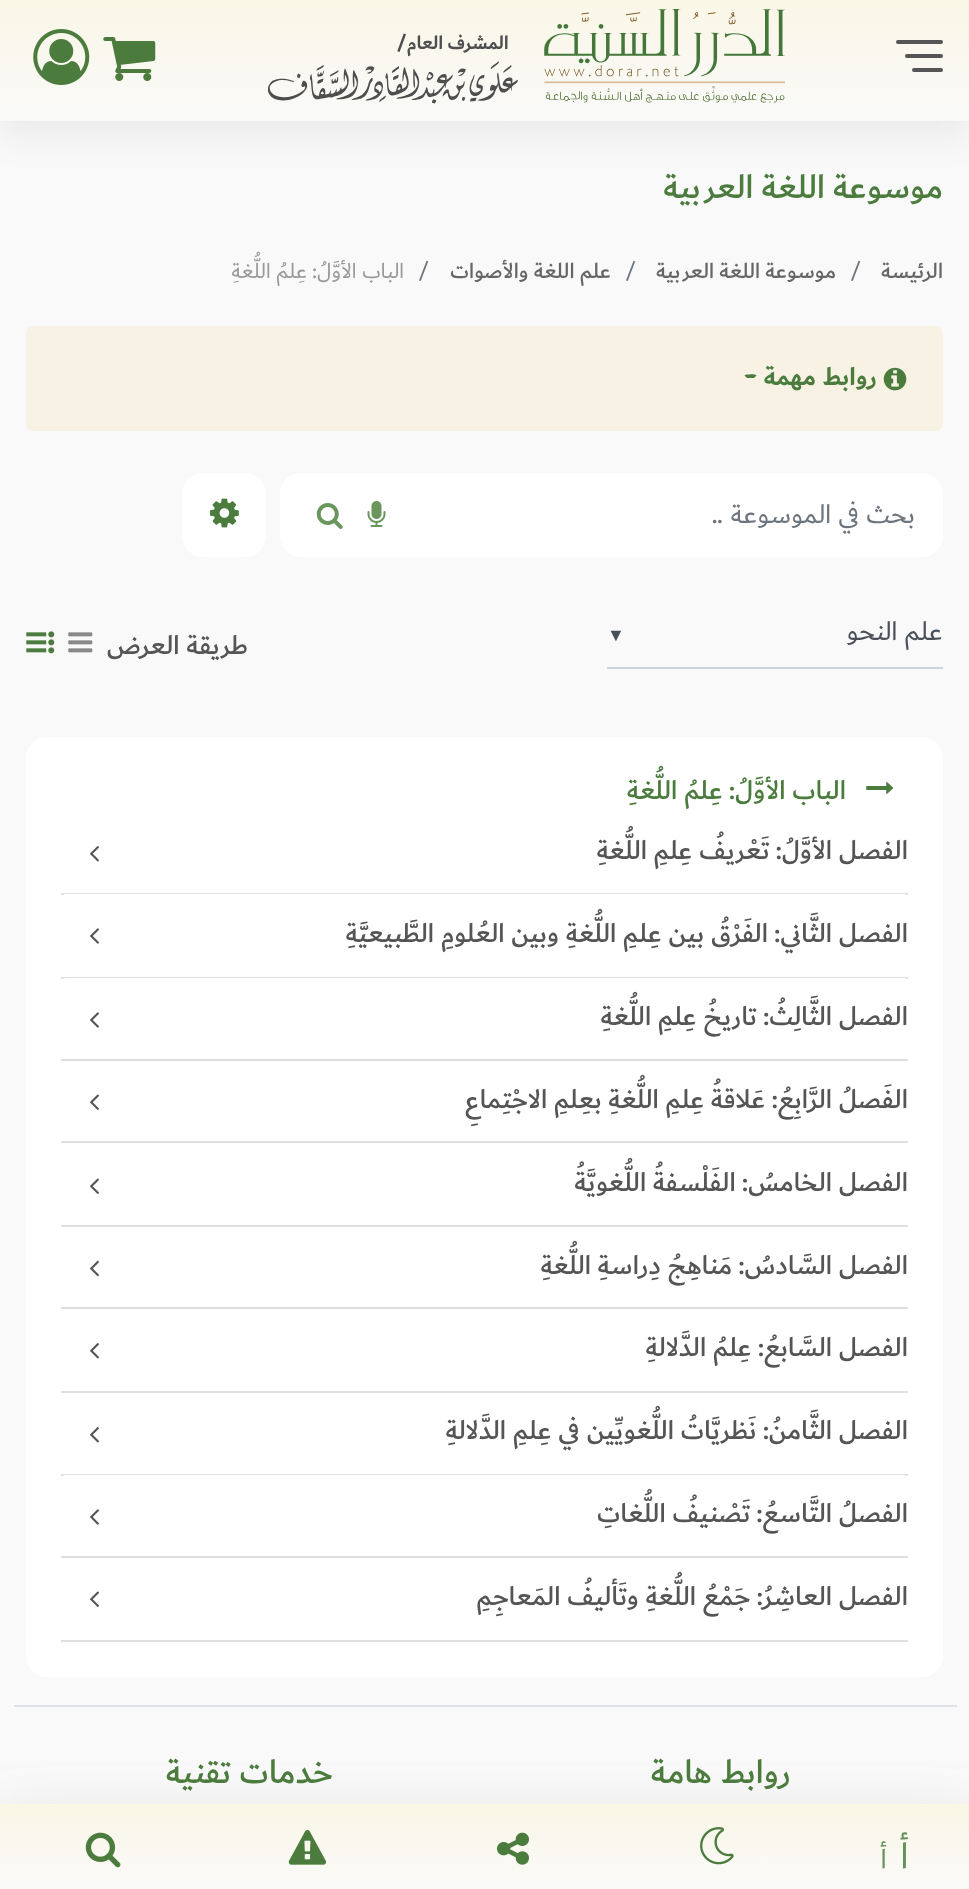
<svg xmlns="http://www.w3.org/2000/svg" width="969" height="1889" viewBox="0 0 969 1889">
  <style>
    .t1 { font: 500 35px 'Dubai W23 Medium'; direction: rtl; fill: #4b7c3d; }
    .t2 { font: 500 22.5px 'Dubai W23 Medium'; direction: rtl; fill: #666; }
    .t3 { font: 22.5px 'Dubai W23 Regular'; fill: #6c757d; }
    .t4 { font: 22.5px 'Dubai W23 Regular'; direction: rtl; fill: #999; }
    .t5 { font: bold 26.5px 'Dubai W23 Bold'; direction: rtl; fill: #4b7c3d; }
    .t6 { font: 28px 'Dubai W23 Regular'; direction: rtl; fill: #6c757d; }
    .t7 { font: 28px 'Dubai W23 Regular'; direction: rtl; fill: #495057; }
    .t8 { font: 18px Liberation Sans; fill: #495057; }
    .t9 { font: 500 28px 'Dubai W23 Medium'; direction: rtl; fill: #555; }
    .t10 { font: 500 28px 'Dubai W23 Medium'; direction: rtl; fill: #4b7c3d; }
  </style>
  <defs>
    <linearGradient id="g1" gradientUnits="userSpaceOnUse" x1="485" y1="-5.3" x2="485" y2="121"><stop offset="0" stop-color="#faf7e6"/><stop offset="1" stop-color="#f9f9f9"/></linearGradient>
    <linearGradient id="g2" gradientUnits="userSpaceOnUse" x1="485" y1="1804" x2="485" y2="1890"><stop offset="0" stop-color="#faf7e6"/><stop offset="1" stop-color="#f9f9f9"/></linearGradient>
  </defs>
  <rect width="100%" height="100%" fill="#f9f9f9"/>
  <rect x="0" y="11" width="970" height="126" fill="#0000000f" filter="blur(17.5px)"/>
  <rect x="0" y="0" width="969" height="121" fill="url(#g1)"/>
  <rect x="896" y="40" width="47" height="4" rx="2" fill="#555"/>
  <rect x="905" y="54" width="38" height="4" rx="2" fill="#555"/>
  <rect x="912" y="68" width="31" height="4" rx="2" fill="#555"/>
  <image x="268" y="9" width="517" height="95" href="images/1.png"/>
  <image x="103" y="37" width="53" height="44" href="images/2.png"/>
  <image x="33" y="29" width="57" height="56" href="images/3.png"/>
  <rect x="0" y="1822" width="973" height="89" fill="#78787840" filter="blur(28px)"/>
  <rect x="0" y="1804" width="969" height="85" fill="url(#g2)"/>
  <image x="880" y="1832" width="28" height="37" href="images/4.png"/>
  <image x="700" y="1827" width="34" height="38" href="images/5.png"/>
  <image x="497" y="1832" width="32" height="33" href="images/6.png"/>
  <image x="288" y="1830" width="39" height="35" href="images/7.png"/>
  <image x="85" y="1832" width="36" height="36" href="images/8.png"/>
  <text x="943" y="198" class="t1">موسوعة اللغة العربية</text>
  <text x="943" y="278" class="t2">الرئيسة</text>
  <text x="850" y="278" class="t3">/</text>
  <text x="836" y="278" class="t2">موسوعة اللغة العربية</text>
  <text x="625" y="278" class="t3">/</text>
  <text x="611" y="278" class="t2">علم اللغة والأصوات</text>
  <text x="418" y="278" class="t3">/</text>
  <text x="404" y="278" class="t4">الباب الأوَّلُ: عِلمُ اللُّغةِ</text>
  <rect x="26" y="326" width="917" height="105" rx="7" fill="#f7f2e4"/>
  <image x="883" y="367" width="24" height="24" href="images/9.png"/>
  <text x="877" y="385" class="t5">روابط مهمة</text>
  <path d="M747 374.5C749 374.5 755 373.5 756.5 375.5L754 378H747L744.5 375.5C745 375 746 374.5 747 374.5Z" fill="#4b7c3d"/>
  <rect x="280" y="473" width="663" height="84" rx="21" fill="#fff"/>
  <text x="915" y="523" class="t6">بحث في الموسوعة ..</text>
  <image x="367" y="501" width="19" height="26" href="images/10.png"/>
  <image x="316" y="503" width="27" height="26" href="images/11.png"/>
  <rect x="182" y="473" width="84" height="84" rx="21" fill="#fff"/>
  <image x="210" y="498" width="29" height="30" href="images/12.png"/>
  <rect x="607" y="667" width="336" height="2" fill="#ced4da"/>
  <text x="943" y="640" class="t7">علم النحو</text>
  <text x="607" y="641" class="t8">▼</text>
  <text x="248" y="654" class="t9">طريقة العرض</text>
  <image x="68" y="632" width="25" height="21" href="images/13.png"/>
  <image x="26" y="631" width="29" height="23" href="images/14.png"/>
  <rect x="26" y="737" width="917" height="940" rx="21" fill="#fff"/>
  <image x="866" y="782" width="28" height="12" href="images/15.png"/>
  <text x="846" y="799" class="t10">الباب الأوَّلُ: عِلمُ اللُّغةِ</text>
  <rect x="61" y="893" width="847" height="2" fill="#dfdfdf"/>
  <text x="908" y="859" class="t9">الفصل الأوَّلُ: تَعْريفُ عِلمِ اللُّغةِ</text>
  <image x="90" y="846" width="9" height="16" href="images/16.png"/>
  <path d="M66 894H903C906 894 908 896 908 899V978H61V899C61 896 63 894 66 894Z" fill="#fff"/>
  <rect x="61" y="977" width="847" height="2" fill="#dfdfdf"/>
  <text x="908" y="942" class="t9">الفصل الثَّاني: الفَرْقُ بين عِلمِ اللُّغةِ وبين العُلومِ الطَّبيعيَّةِ</text>
  <image x="90" y="928" width="9" height="16" href="images/17.png"/>
  <path d="M66 978H903C906 978 908 980 908 983V1061H61V983C61 980 63 978 66 978Z" fill="#fff"/>
  <rect x="61" y="1059" width="847" height="2" fill="#dfdfdf"/>
  <text x="908" y="1025" class="t9">الفصل الثَّالِثُ: تاريخُ عِلمِ اللُّغةِ</text>
  <image x="90" y="1012" width="9" height="16" href="images/17.png"/>
  <rect x="61" y="1141" width="847" height="2" fill="#dfdfdf"/>
  <text x="908" y="1108" class="t9">الفَصلُ الرَّابِعُ: عَلاقةُ عِلمِ اللُّغةِ بعِلمِ الاجْتِماعِ</text>
  <image x="90" y="1094" width="9" height="16" href="images/18.png"/>
  <rect x="61" y="1225" width="847" height="2" fill="#dfdfdf"/>
  <text x="908" y="1191" class="t9">الفصل الخامسُ: الفَلْسفةُ اللُّغويَّةُ</text>
  <image x="90" y="1178" width="9" height="16" href="images/18.png"/>
  <rect x="61" y="1307" width="847" height="2" fill="#dfdfdf"/>
  <text x="908" y="1274" class="t9">الفصل السَّادسُ: مَناهِجُ دِراسةِ اللُّغةِ</text>
  <image x="90" y="1260" width="9" height="17" href="images/19.png"/>
  <rect x="61" y="1391" width="847" height="2" fill="#dfdfdf"/>
  <text x="908" y="1356" class="t9">الفصل السَّابعُ: عِلمُ الدَّلالةِ</text>
  <image x="90" y="1343" width="9" height="16" href="images/16.png"/>
  <rect x="61" y="1474" width="847" height="2" fill="#dfdfdf"/>
  <text x="908" y="1439" class="t9">الفصل الثَّامنُ: نَظريَّاتُ اللُّغويِّين في عِلمِ الدَّلالةِ</text>
  <image x="90" y="1427" width="9" height="16" href="images/16.png"/>
  <path d="M66 1475H903C906 1475 908 1477 908 1480V1558H61V1480C61 1477 63 1475 66 1475Z" fill="#fff"/>
  <rect x="61" y="1556" width="847" height="2" fill="#dfdfdf"/>
  <text x="908" y="1522" class="t9">الفصلُ التَّاسعُ: تَصْنيفُ اللُّغاتِ</text>
  <image x="90" y="1509" width="9" height="16" href="images/17.png"/>
  <rect x="61" y="1640" width="847" height="2" fill="#dfdfdf"/>
  <text x="908" y="1605" class="t9">الفصل العاشِرُ: جَمْعُ اللُّغةِ وتَأليفُ المَعاجِمِ</text>
  <image x="90" y="1591" width="9" height="16" href="images/18.png"/>
  <rect x="14" y="1705" width="943" height="2" fill="#dee2e6"/>
  <text x="791" y="1783" class="t1">روابط هامة</text>
  <text x="333" y="1783" class="t1">خدمات تقنية</text>
</svg>
